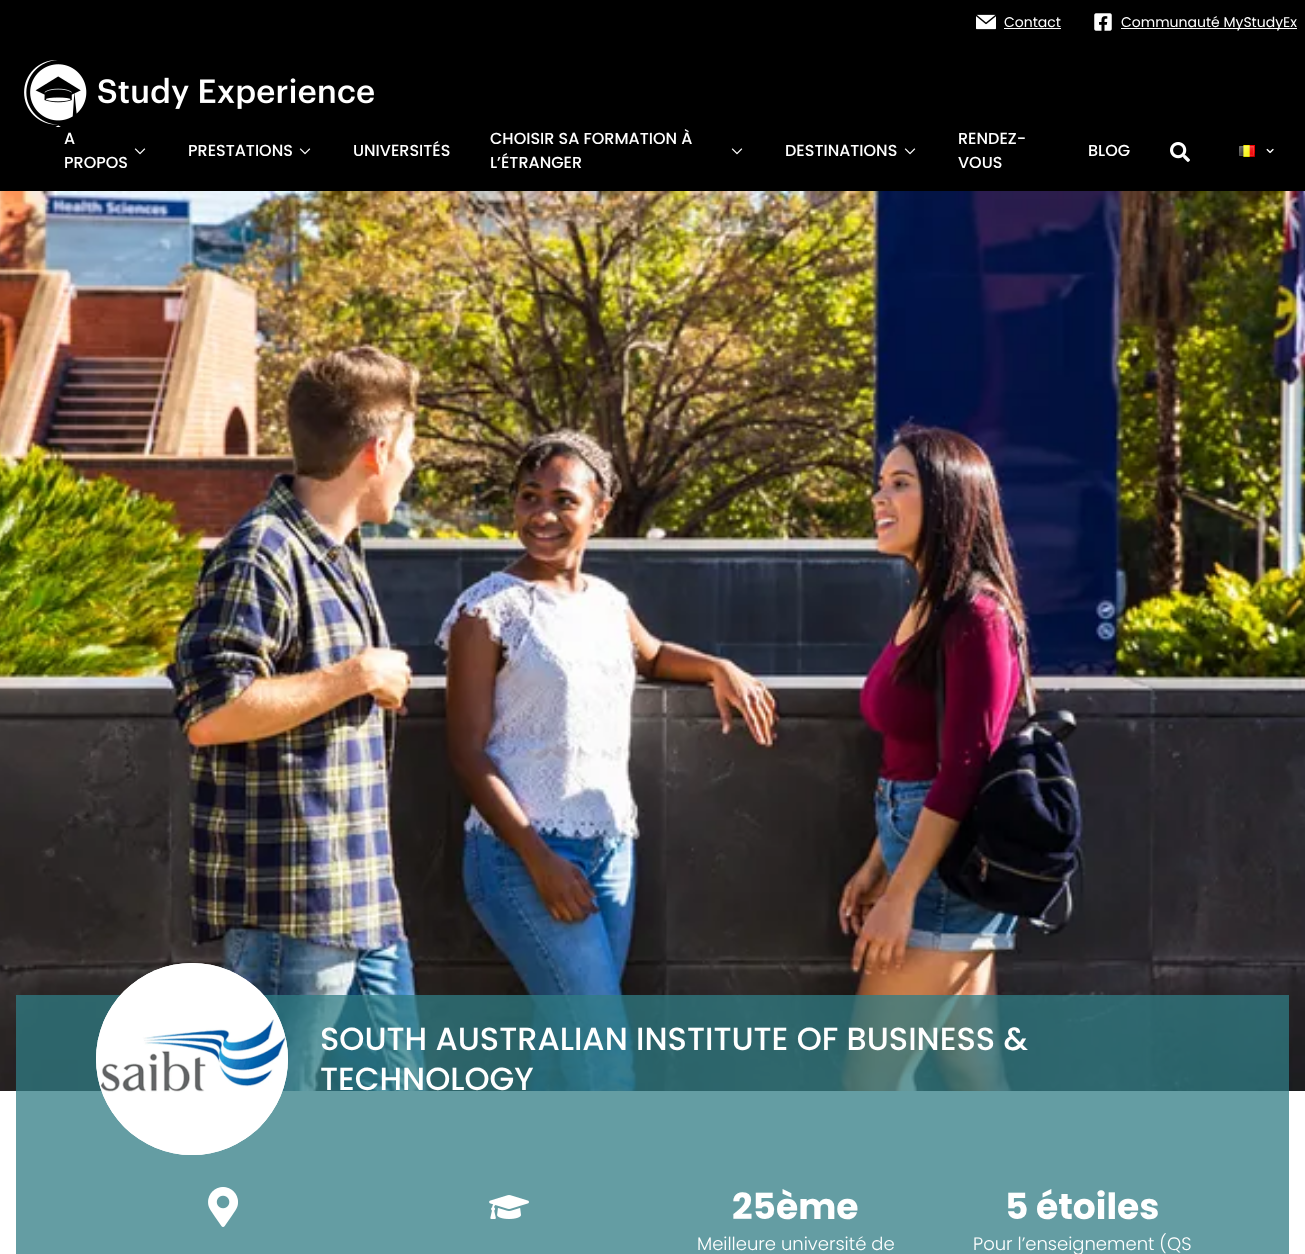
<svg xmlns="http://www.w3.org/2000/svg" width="1305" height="1254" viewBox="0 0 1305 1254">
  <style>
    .t1 { font: 14px Poppins; fill: #fff; }
    .t2 { font: 500 16px Poppins; fill: #fff; }
    .t3 { font: 500 32px Poppins; fill: #fff; }
    .t4 { font: bold 36px Poppins; fill: #fff; }
    .t5 { font: 300 18px Poppins; fill: #fff; }
  </style>
  <rect width="100%" height="100%" fill="#fff"/>
  <rect x="0" y="0" width="1305" height="191" fill="#000"/>
  <image x="976" y="14" width="20" height="16" href="images/1.png"/>
  <text x="1004" y="27" class="t1">Contact</text>
  <rect x="1004" y="28" width="57" height="1" fill="#fff"/>
  <image x="1094" y="13" width="18" height="18" href="images/2.png"/>
  <rect x="1121" y="28" width="176" height="1" fill="#fff"/>
  <text x="1121" y="27" class="t1">Communauté MyStudyEx</text>
  <image x="24" y="60" width="350" height="67" href="images/3.png"/>
  <text x="64" y="144" class="t2">A</text>
  <image x="134" y="148" width="12" height="7" href="images/4.png"/>
  <text x="64" y="168" class="t2">PROPOS</text>
  <text x="188" y="156" class="t2">PRESTATIONS</text>
  <image x="299" y="148" width="12" height="7" href="images/4.png"/>
  <text x="353" y="156" class="t2">UNIVERSITÉS</text>
  <text x="490" y="144" class="t2">CHOISIR SA FORMATION À</text>
  <text x="490" y="168" class="t2">L’ÉTRANGER</text>
  <image x="731" y="148" width="12" height="7" href="images/4.png"/>
  <text x="785" y="156" class="t2">DESTINATIONS</text>
  <image x="904" y="148" width="12" height="7" href="images/4.png"/>
  <text x="958" y="144" class="t2">RENDEZ-</text>
  <text x="958" y="168" class="t2">VOUS</text>
  <text x="1088" y="156" class="t2">BLOG</text>
  <image x="1170" y="142" width="20" height="20" href="images/5.png"/>
  <image x="1239" y="145" width="16" height="12" href="images/6.png"/>
  <image x="1266" y="148" width="8" height="6" href="images/7.png"/>
  <image x="0" y="191" width="1305" height="900" href="images/8.png"/>
  <rect x="16" y="995" width="1273" height="259" fill="#307c84bf"/>
  <circle cx="192" cy="1059" r="96" fill="#fff"/>
  <image x="96" y="963" width="192" height="192" href="images/9.png"/>
  <text x="320" y="1050" class="t3">SOUTH AUSTRALIAN INSTITUTE OF BUSINESS &amp;</text>
  <text x="320" y="1090" class="t3">TECHNOLOGY</text>
  <image x="208" y="1187" width="30" height="40" href="images/10.png"/>
  <image x="489" y="1195" width="40" height="24" href="images/11.png"/>
  <text x="732" y="1219" class="t4">25ème</text>
  <text x="697" y="1250" class="t5">Meilleure université de</text>
  <text x="1005" y="1219" class="t4">5 étoiles</text>
  <text x="973" y="1250" class="t5">Pour l’enseignement (QS</text>
</svg>
